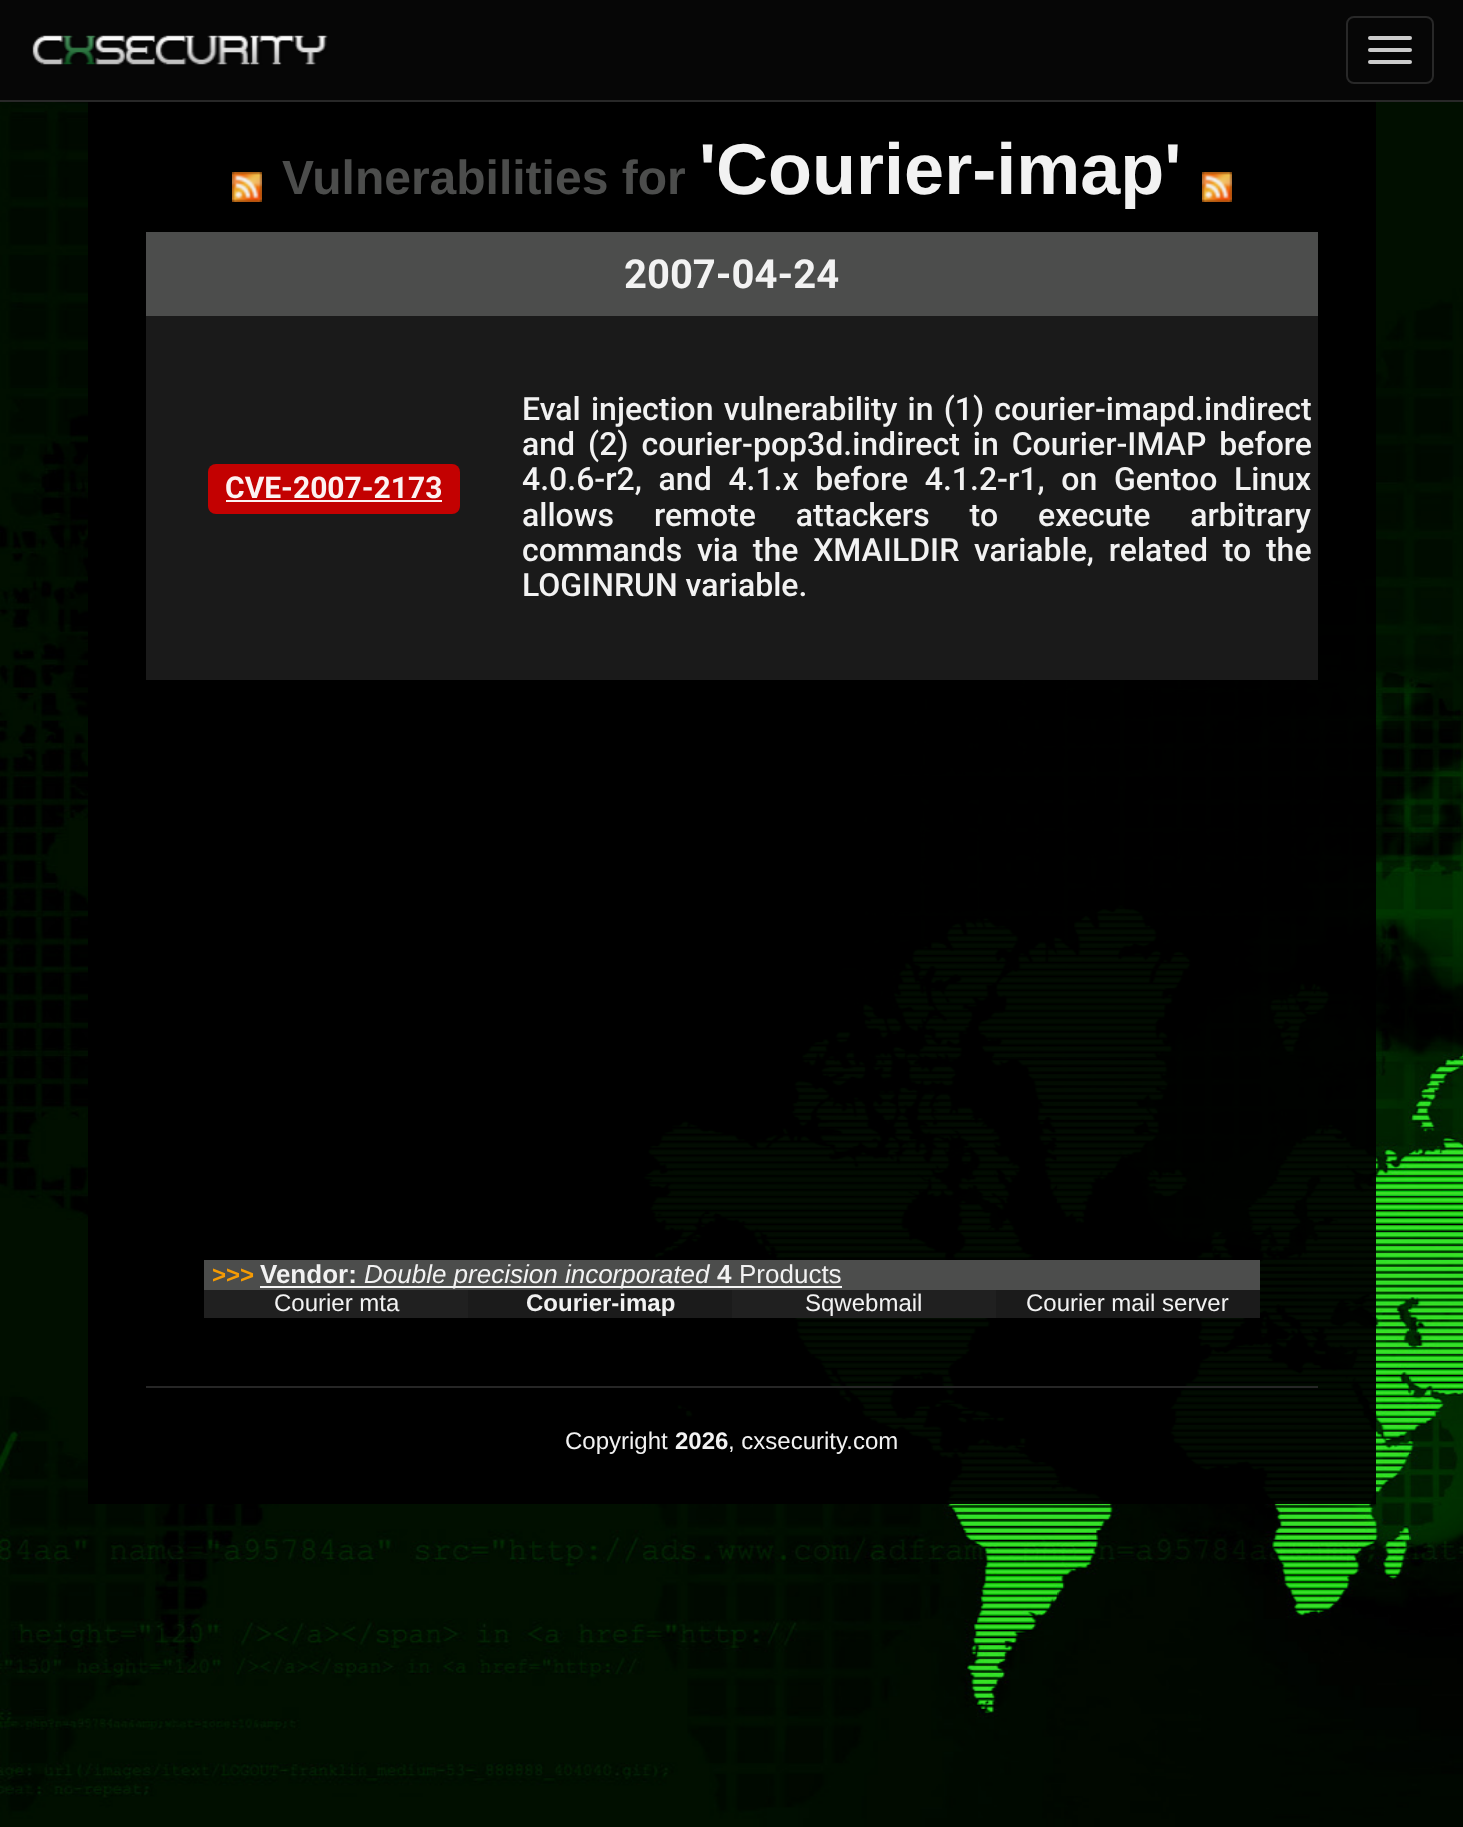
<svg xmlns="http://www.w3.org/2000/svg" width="1463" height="1827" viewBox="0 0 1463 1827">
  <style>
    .t1 { font: bold 48px Liberation Sans; fill: #4c4d4c; }
    .t2 { font: bold 72px Liberation Sans; fill: #f2f2f2; }
    .t3 { font: bold 40px Roboto; fill: #f2f2f2; }
    .t4 { font: bold 30px Roboto; fill: #fcf2f2; }
    .t5 { font: 500 32px Roboto; fill: #f2f2f2; }
    .t6 { font: bold 24px Liberation Sans; fill: #f69b04; }
    .t7 { font: bold 26px Liberation Sans; fill: #f2f2f2; }
    .t8 { font: italic 26px Liberation Sans; fill: #f2f2f2; }
    .t9 { font: 26px Liberation Sans; fill: #f2f2f2; }
    .t10 { font: 24px Liberation Sans; fill: #f2f2f2; }
    .t11 { font: bold 24px Liberation Sans; fill: #f2f2f2; }
  </style>
  <rect width="100%" height="100%" fill="#fff"/>
  <image x="0" y="102" width="1463" height="1725" href="images/1.png"/>
  <rect x="0" y="0" width="1463" height="100" fill="#060606"/>
  <rect x="0" y="100" width="1463" height="2" fill="#282828"/>
  <image x="32" y="35" width="296" height="30" href="images/2.png"/>
  <rect x="1347" y="17" width="86" height="66" rx="7" fill="none" stroke="#282828" stroke-width="2"/>
  <rect x="1368" y="36" width="44" height="4" rx="2" fill="#ccc"/>
  <rect x="1368" y="48" width="44" height="4" rx="2" fill="#ccc"/>
  <rect x="1368" y="60" width="44" height="4" rx="2" fill="#ccc"/>
  <rect x="88" y="102" width="58" height="1402" fill="#000000f2"/>
  <rect x="146" y="102" width="1172" height="1402" fill="#000000f2"/>
  <image x="232" y="172" width="30" height="30" href="images/3.png"/>
  <text x="282" y="194" class="t1">Vulnerabilities for</text>
  <text x="699" y="194" class="t2">'Courier-imap'</text>
  <image x="1202" y="172" width="30" height="30" href="images/4.png"/>
  <rect x="146" y="232" width="1172" height="84" fill="#4c4d4c"/>
  <text x="624" y="288" class="t3">2007-04-24</text>
  <rect x="146" y="316" width="1172" height="364" fill="#1a1a1a"/>
  <rect x="208" y="464" width="252" height="50" rx="8" fill="#c30101"/>
  <text x="225" y="498" class="t4">CVE-2007-2173</text>
  <rect x="226" y="500" width="216" height="2" fill="#fcf2f2"/>
  <text x="522" y="420" word-spacing="2.25" class="t5">Eval injection vulnerability in (1) courier-imapd.indirect</text>
  <text x="522" y="455" word-spacing="5" class="t5">and (2) courier-pop3d.indirect in Courier-IMAP before</text>
  <text x="522" y="490" word-spacing="8.75" class="t5">4.0.6-r2, and 4.1.x before 4.1.2-r1, on Gentoo Linux</text>
  <text x="522" y="526" word-spacing="32" class="t5">allows remote attackers to execute arbitrary</text>
  <text x="522" y="561" word-spacing="6.75" class="t5">commands via the XMAILDIR variable, related to the</text>
  <text x="522" y="596" class="t5">LOGINRUN variable.</text>
  <rect x="204" y="1260" width="1056" height="30" fill="#505150f2"/>
  <text x="212" y="1283" class="t6">&gt;&gt;&gt;</text>
  <text x="260" y="1283" class="t7">Vendor:</text>
  <rect x="260" y="1286" width="450" height="2" fill="#f6f6f6"/>
  <text x="364" y="1283" class="t8">Double precision incorporated</text>
  <rect x="710" y="1286" width="8" height="2" fill="#f2f2f2"/>
  <text x="717" y="1283" class="t7">4</text>
  <rect x="718" y="1286" width="124" height="2" fill="#f6f6f6"/>
  <text x="739" y="1283" class="t9">Products</text>
  <rect x="204" y="1290" width="264" height="28" fill="#202020"/>
  <text x="274" y="1311" class="t10">Courier mta</text>
  <rect x="468" y="1290" width="264" height="28" fill="#1b1b1b"/>
  <text x="526" y="1311" class="t11">Courier-imap</text>
  <rect x="732" y="1290" width="264" height="28" fill="#202020"/>
  <text x="805" y="1311" class="t10">Sqwebmail</text>
  <rect x="996" y="1290" width="264" height="28" fill="#1b1b1b"/>
  <text x="1026" y="1311" class="t10">Courier mail server</text>
  <rect x="146" y="1386" width="1172" height="2" fill="#282828f2"/>
  <text x="565" y="1449" class="t10">Copyright</text>
  <text x="675" y="1449" class="t11">2026</text>
  <text x="728" y="1449" class="t10">, cxsecurity.com</text>
  <rect x="1318" y="102" width="58" height="1402" fill="#000000f2"/>
</svg>
